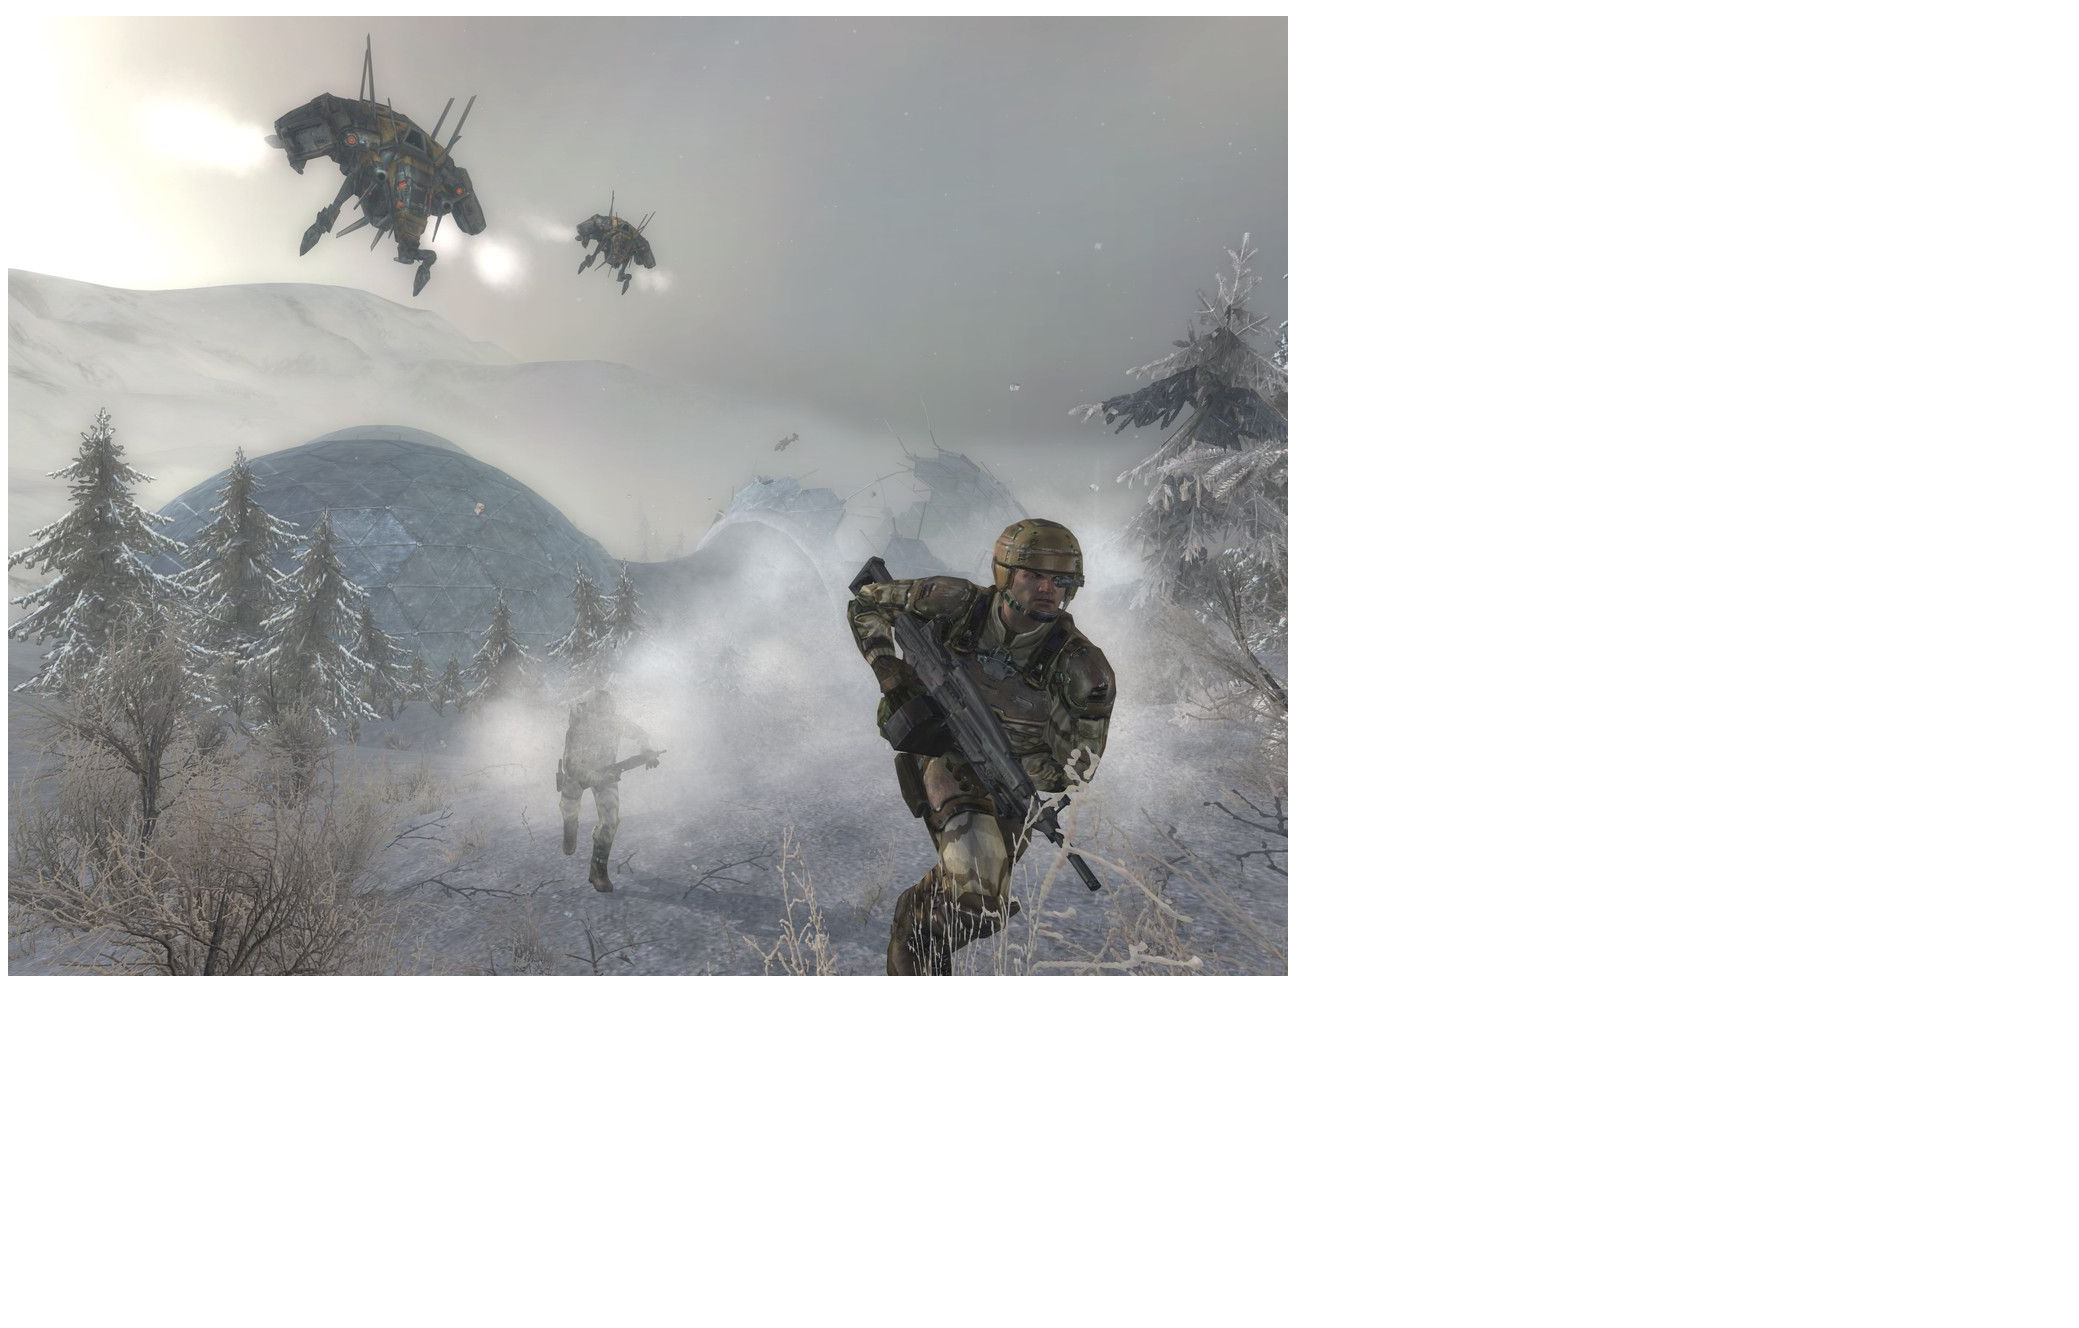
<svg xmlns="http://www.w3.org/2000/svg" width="2079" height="1328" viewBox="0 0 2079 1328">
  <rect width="100%" height="100%" fill="#fff"/>
  <image x="8" y="16" width="1280" height="960" href="images/1.png"/>
</svg>
